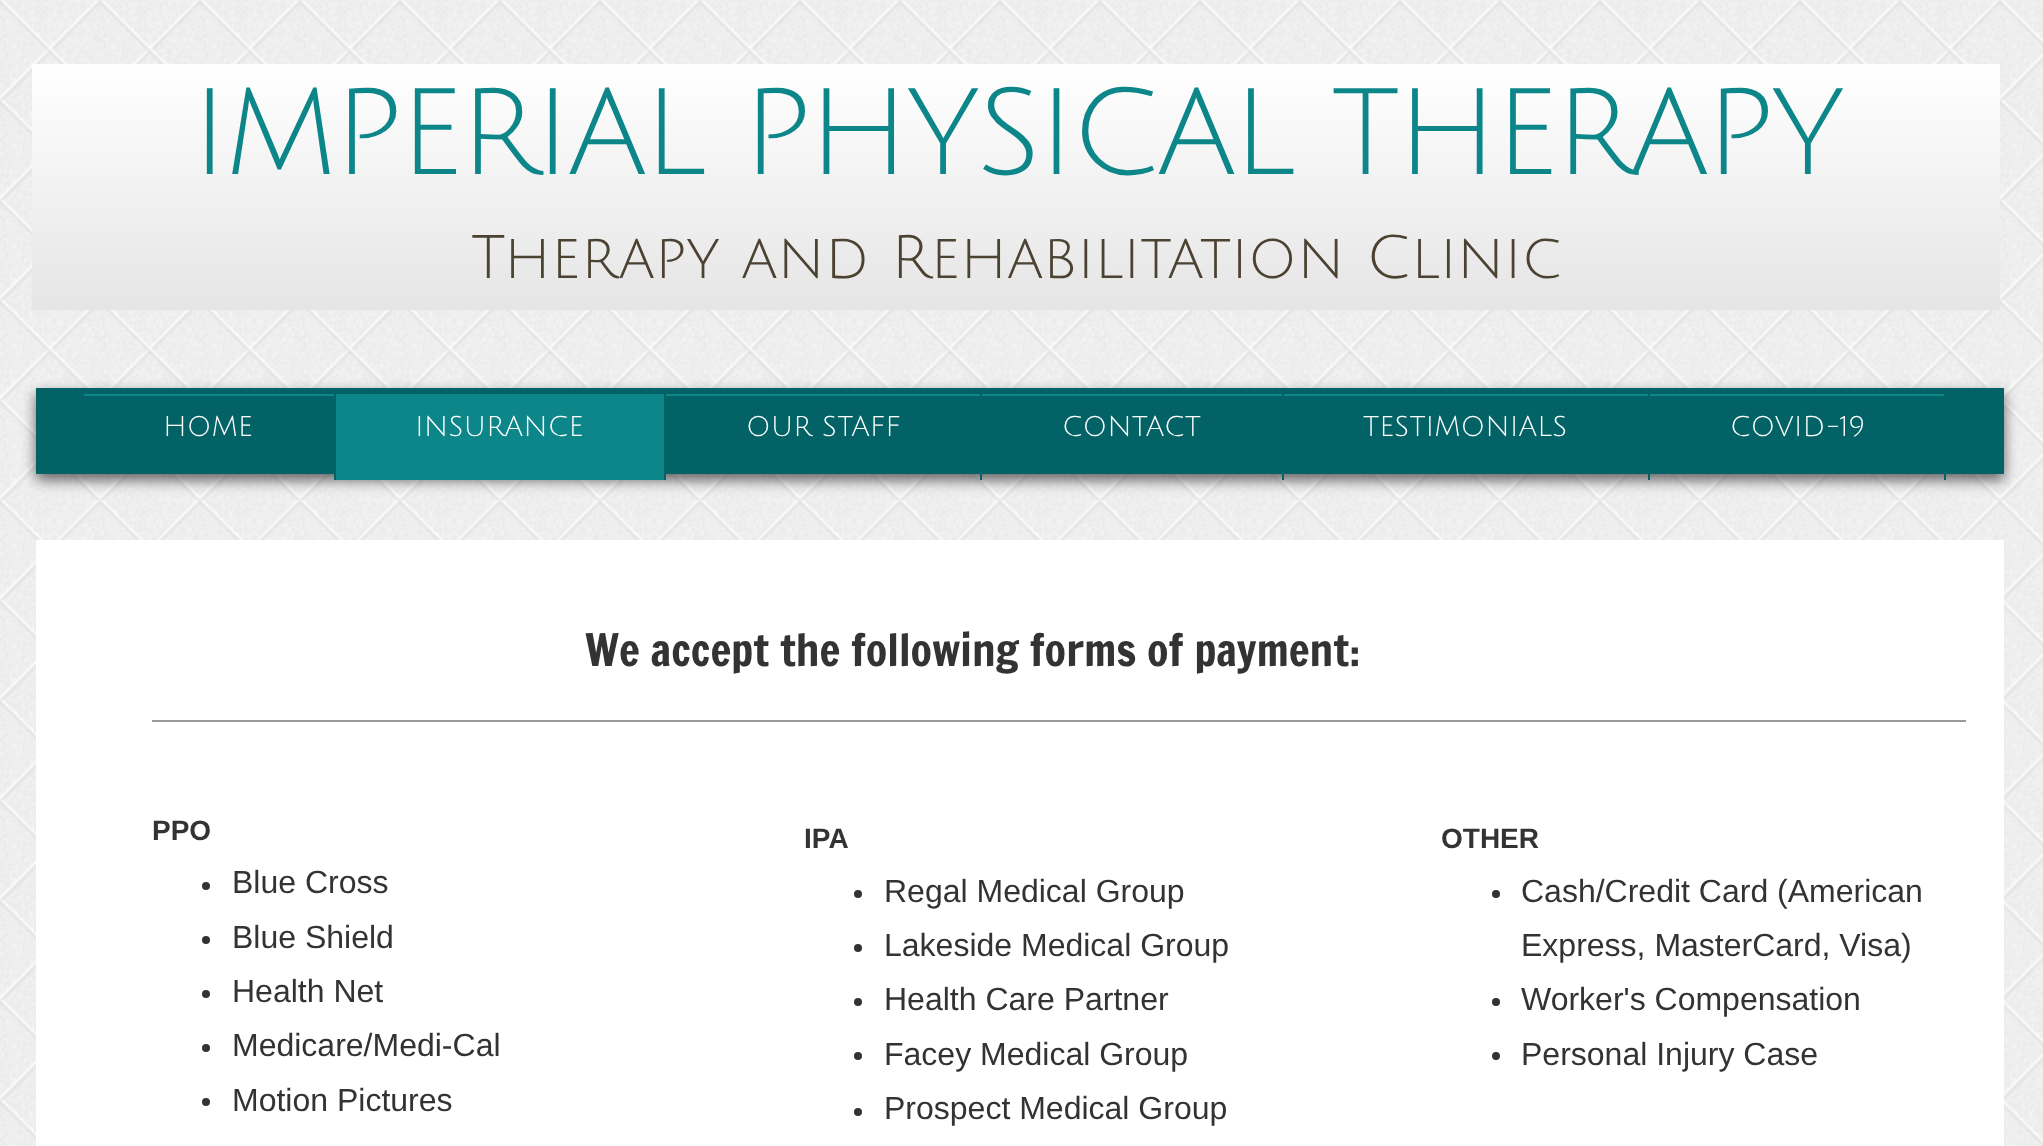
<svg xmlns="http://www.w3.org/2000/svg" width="2043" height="1146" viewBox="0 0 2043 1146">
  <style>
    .t1 { font: 120px Julius Sans One; letter-spacing: -4px; fill: #0d868a; }
    .t2 { font: 60px Julius Sans One; fill: #4b4232; }
    .t3 { font: 28px Julius Sans One; fill: #fff; }
    .t4 { font: 44px Francois One; fill: #333; }
    .t5 { font: bold 28px Liberation Sans; fill: #333; }
    .t6 { font: 32px Liberation Sans; fill: #333; }
  </style>
  <defs>
    <linearGradient id="g1" gradientUnits="userSpaceOnUse" x1="1016" y1="64" x2="1016" y2="310"><stop offset="0" stop-color="#fff"/><stop offset="1" stop-color="#e5e5e5"/></linearGradient>
  </defs>
  <rect width="100%" height="100%" fill="#fff"/>
  <image x="0" y="0" width="2043" height="1146" href="images/1.png"/>
  <rect x="32" y="64" width="1968" height="246" fill="url(#g1)"/>
  <text x="191" y="174" class="t1">IMPERIAL PHYSICAL THERAPY</text>
  <text x="471" y="278" class="t2">Therapy and Rehabilitation Clinic</text>
  <rect x="36" y="394" width="1968" height="86" fill="#323232bf" filter="blur(7px)"/>
  <rect x="36" y="388" width="1968" height="86" fill="#036265"/>
  <rect x="84" y="394" width="252" height="2" fill="#0d868a"/>
  <rect x="334" y="394" width="2" height="86" fill="#036265"/>
  <text x="163" y="436" class="t3">HOME</text>
  <rect x="336" y="394" width="328" height="86" fill="#0d868a"/>
  <rect x="664" y="474" width="2" height="6" fill="#036265"/>
  <text x="415" y="436" class="t3">INSURANCE</text>
  <rect x="666" y="394" width="1280" height="2" fill="#0d868a"/>
  <rect x="980" y="394" width="2" height="86" fill="#036265"/>
  <text x="746" y="436" class="t3">OUR STAFF</text>
  <rect x="1282" y="394" width="2" height="86" fill="#036265"/>
  <text x="1062" y="436" class="t3">CONTACT</text>
  <rect x="1648" y="394" width="2" height="86" fill="#036265"/>
  <text x="1363" y="436" class="t3">TESTIMONIALS</text>
  <rect x="1944" y="394" width="2" height="86" fill="#036265"/>
  <text x="1730" y="436" class="t3">COVID-19</text>
  <rect x="36" y="540" width="1968" height="606" fill="#fff"/>
  <text x="585" y="666" class="t4">We accept the following forms of payment:</text>
  <rect x="152" y="720" width="1814" height="2" fill="#999"/>
  <text x="152" y="840" class="t5">PPO</text>
  <circle cx="206" cy="886" r="4" fill="#333"/>
  <text x="232" y="893" class="t6">Blue Cross</text>
  <circle cx="206" cy="940" r="4" fill="#333"/>
  <text x="232" y="948" class="t6">Blue Shield</text>
  <circle cx="206" cy="994" r="4" fill="#333"/>
  <text x="232" y="1002" class="t6">Health Net</text>
  <circle cx="206" cy="1048" r="4" fill="#333"/>
  <text x="232" y="1056" class="t6">Medicare/Medi-Cal</text>
  <circle cx="206" cy="1102" r="4" fill="#333"/>
  <text x="232" y="1111" class="t6">Motion Pictures</text>
  <text x="804" y="848" class="t5">IPA</text>
  <circle cx="858" cy="894" r="4" fill="#333"/>
  <text x="884" y="902" class="t6">Regal Medical Group</text>
  <circle cx="858" cy="948" r="4" fill="#333"/>
  <text x="884" y="956" class="t6">Lakeside Medical Group</text>
  <circle cx="858" cy="1002" r="4" fill="#333"/>
  <text x="884" y="1010" class="t6">Health Care Partner</text>
  <circle cx="858" cy="1056" r="4" fill="#333"/>
  <text x="884" y="1065" class="t6">Facey Medical Group</text>
  <circle cx="858" cy="1112" r="4" fill="#333"/>
  <text x="884" y="1119" class="t6">Prospect Medical Group</text>
  <text x="1441" y="848" class="t5">OTHER</text>
  <circle cx="1496" cy="894" r="4" fill="#333"/>
  <text x="1521" y="902" class="t6">Cash/Credit Card (American</text>
  <text x="1521" y="956" class="t6">Express, MasterCard, Visa)</text>
  <circle cx="1496" cy="1002" r="4" fill="#333"/>
  <text x="1521" y="1010" class="t6">Worker's Compensation</text>
  <circle cx="1496" cy="1056" r="4" fill="#333"/>
  <text x="1521" y="1065" class="t6">Personal Injury Case</text>
</svg>
